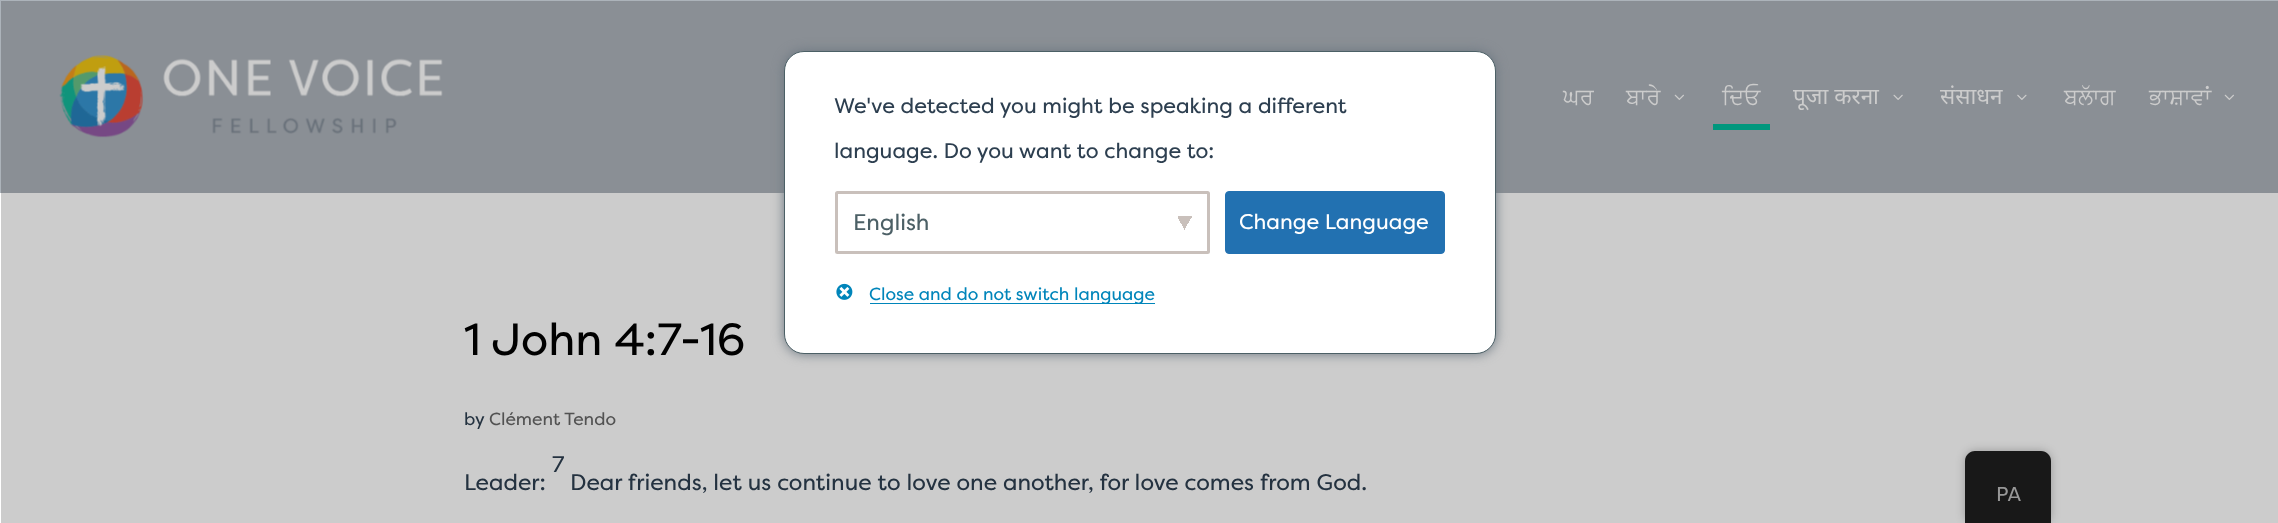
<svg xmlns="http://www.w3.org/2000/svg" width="2278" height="523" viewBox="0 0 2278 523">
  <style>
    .t1 { font: 22.5px FreeSans; fill: #ccc; }
    .t2 { font: 22.5px Noto Sans; fill: #ccc; }
    .t3 { font: 45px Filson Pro; fill: #000; }
    .t4 { font: 17.5px Filson Pro; fill: #243240; }
    .t5 { font: 17.5px Filson Pro; fill: #525252; }
    .t6 { font: 22.5px Filson Pro; fill: #243240; }
    .t7 { font: 21.25px Filson Pro; fill: #2d3f50; }
    .t8 { font: 22.5px Filson Pro; fill: #4c6066; }
    .t9 { font: 21.25px Filson Pro; fill: #fff; }
    .t10 { font: 17.5px Filson Pro; fill: #0085ba; }
    .t11 { font: 20px Filson Pro; fill: #979797; }
  </style>
  <defs>
    <linearGradient id="g1" gradientUnits="userSpaceOnUse" x1="1182" y1="220" x2="1194" y2="227"><stop offset="0.5" stop-color="#c9c0bb"/><stop offset="0.5" stop-color="#fff"/></linearGradient>
    <linearGradient id="g2" gradientUnits="userSpaceOnUse" x1="1175" y1="227" x2="1187" y2="220"><stop offset="0.5" stop-color="#fff"/><stop offset="0.5" stop-color="#c9c0bb"/></linearGradient>
  </defs>
  <rect width="100%" height="100%" fill="#fff"/>
  <rect x="1" y="193" width="2277" height="330" fill="#ccc"/>
  <rect x="0" y="0" width="2278" height="193" fill="#acb3ba"/>
  <rect x="1" y="1" width="2277" height="192" fill="#8a8f95"/>
  <image x="59" y="55" width="384" height="83" href="images/1.png"/>
  <text x="1563" y="104" class="t1">ਘਰ</text>
  <text x="1626" y="104" class="t1">ਬਾਰੇ</text>
  <image x="1674" y="94" width="10" height="6" href="images/2.png"/>
  <text x="1722" y="104" class="t1">ਦਿਓ</text>
  <rect x="1713" y="124" width="57" height="6" fill="#00977d"/>
  <text x="1793" y="104" class="t2">पूजा करना</text>
  <image x="1893" y="94" width="10" height="6" href="images/3.png"/>
  <text x="1940" y="104" class="t2">संसाधन</text>
  <image x="2017" y="94" width="10" height="6" href="images/4.png"/>
  <text x="2064" y="104" class="t1">ਬਲਾੱਗ</text>
  <text x="2149" y="104" class="t1">ਭਾਸ਼ਾਵਾਂ</text>
  <image x="2224" y="94" width="10" height="6" href="images/2.png"/>
  <text x="464" y="355" class="t3">1 John 4:7-16</text>
  <text x="464" y="425" class="t4">by</text>
  <text x="489" y="425" class="t5">Clément Tendo</text>
  <text x="552" y="472" class="t6">7</text>
  <text x="464" y="490" class="t6">Leader:</text>
  <text x="570" y="490" class="t6">Dear friends, let us continue to love one another, for love comes from God.</text>
  <rect x="784" y="51" width="712" height="303" rx="20" fill="#6c7781" filter="blur(6px)"/>
  <rect x="784.5" y="51.5" width="711" height="302" rx="19.5" fill="#fff" stroke="#4c6066"/>
  <text x="834" y="113" class="t7">We've detected you might be speaking a different</text>
  <text x="834" y="158" class="t7">language. Do you want to change to:</text>
  <rect x="1185" y="216" width="7" height="15" fill="url(#g1)"/>
  <rect x="1178" y="216" width="7" height="15" fill="url(#g2)"/>
  <rect x="836.5" y="192.5" width="372" height="60" rx="1" fill="none" stroke="#c9c0bb" stroke-width="3"/>
  <text x="853" y="230" class="t8">English</text>
  <rect x="1225.5" y="191.5" width="219" height="62" rx="3.5" fill="#2271b1" stroke="#2271b1"/>
  <text x="1239" y="229" class="t9">Change Language</text>
  <image x="836" y="283" width="17" height="17" href="images/5.png"/>
  <rect x="870" y="303" width="285" height="1" fill="#0085ba"/>
  <text x="869" y="300" class="t10">Close and do not switch language</text>
  <rect x="1965" y="451" width="86" height="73" rx="10" fill="#00000040" filter="blur(5px)"/>
  <path d="M1975 451H2041C2046.5 451 2051 455.5 2051 461V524H1965V461C1965 455.5 1969.5 451 1975 451Z" fill="#181818"/>
  <text x="1996" y="501" class="t11">PA</text>
</svg>
